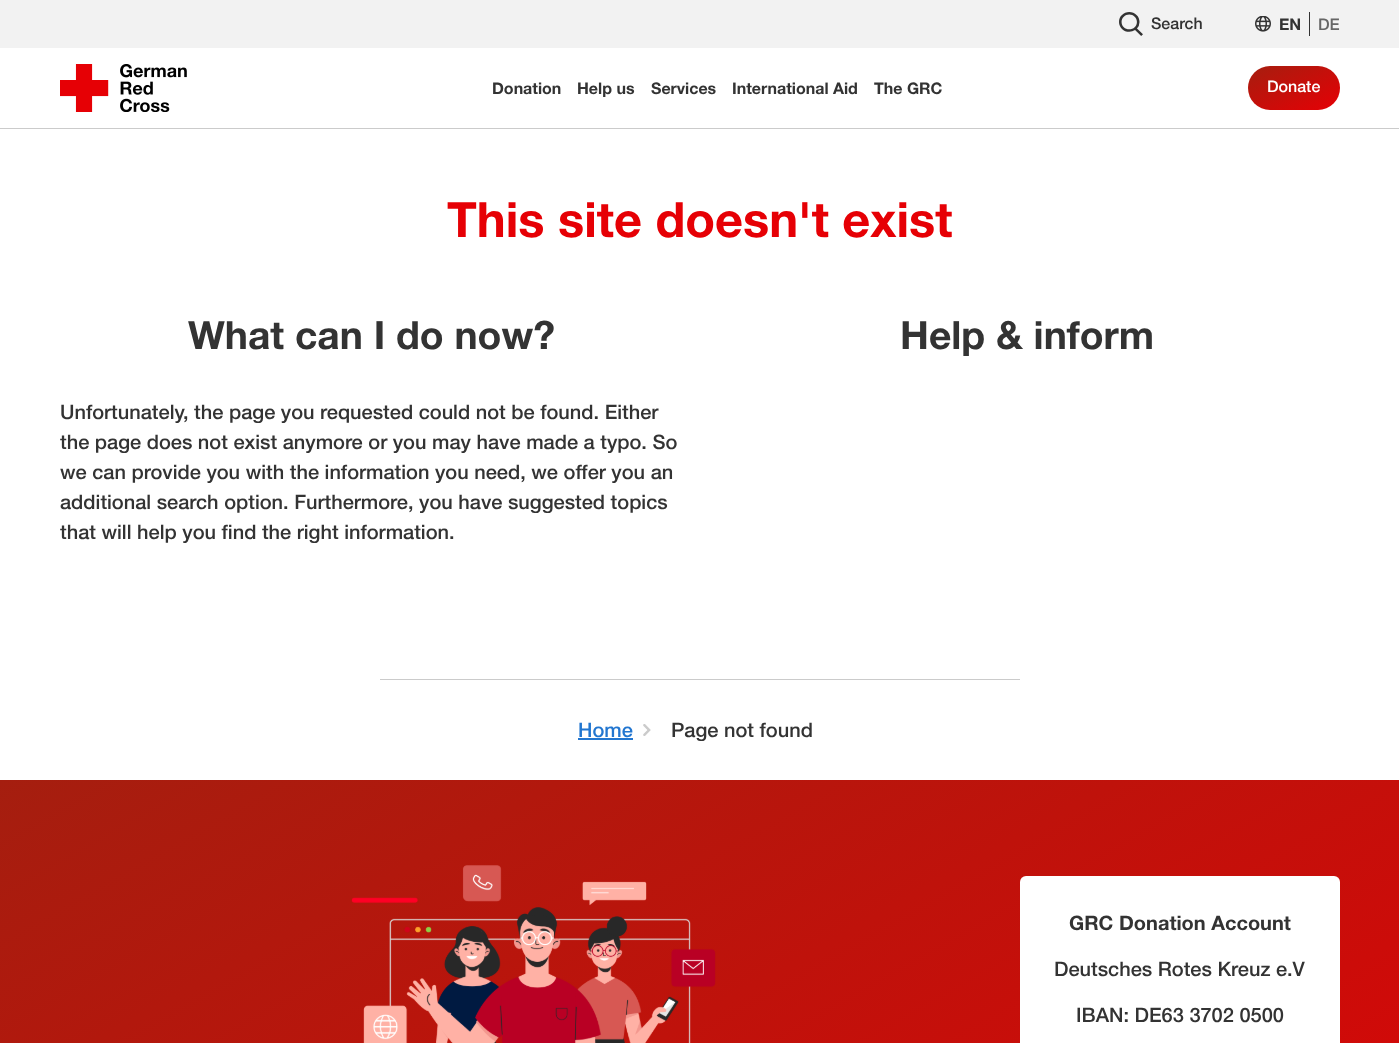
<svg xmlns="http://www.w3.org/2000/svg" width="1399" height="1043" viewBox="0 0 1399 1043">
  <style>
    .t1 { font: 500 16px Helvetica Neue; fill: #333; }
    .t2 { font: bold 16px Helvetica Neue; fill: #333; }
    .t3 { font: 500 16px Helvetica Neue; fill: #666; }
    .t4 { font: 500 16px Helvetica Neue; fill: #fff; }
    .t5 { font: bold 48.75px Helvetica Neue; fill: #e60005; }
    .t6 { font: bold 39px Helvetica Neue; fill: #333; }
    .t7 { font: 500 20px Helvetica Neue; fill: #333; }
    .t8 { font: 500 20px Helvetica Neue; fill: #2276d0; }
    .t9 { font: bold 20px Helvetica Neue; fill: #333; }
  </style>
  <defs>
    <linearGradient id="g1" gradientUnits="userSpaceOnUse" x1="1277" y1="52" x2="1311" y2="124"><stop offset="0" stop-color="#a51e0f"/><stop offset="1" stop-color="#e60005"/></linearGradient>
    <clipPath id="clip1"><rect x="60" y="311" width="624" height="272"/></clipPath>
    <linearGradient id="g2" gradientUnits="userSpaceOnUse" x1="362" y1="576" x2="1037" y2="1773"><stop offset="0" stop-color="#a51e0f"/><stop offset="1" stop-color="#e60005"/></linearGradient>
  </defs>
  <rect width="100%" height="100%" fill="#fff"/>
  <rect x="0" y="128" width="1399" height="1" fill="#cbcbcb"/>
  <rect x="0" y="0" width="1399" height="48" fill="#f2f2f2"/>
  <image x="1119" y="12" width="24" height="24" href="images/1.png"/>
  <text x="1151" y="29" class="t1">Search</text>
  <image x="1255" y="16" width="16" height="16" href="images/2.png"/>
  <rect x="1309" y="12" width="1" height="24" fill="#333"/>
  <text x="1279" y="30" class="t2">EN</text>
  <text x="1318" y="30" class="t3">DE</text>
  <image x="60" y="64" width="127" height="48" href="images/3.png"/>
  <text x="492" y="94" class="t2">Donation</text>
  <text x="577" y="94" class="t2">Help us</text>
  <text x="651" y="94" class="t2">Services</text>
  <text x="732" y="94" class="t2">International Aid</text>
  <text x="874" y="94" class="t2">The GRC</text>
  <rect x="1248" y="66" width="92" height="44" rx="22" fill="url(#g1)"/>
  <text x="1267" y="92" class="t4">Donate</text>
  <text x="447" y="237" class="t5">This site doesn't exist</text>
  <text x="188" y="349" class="t6">What can I do now?</text>
  <text x="60" y="419" class="t7">Unfortunately, the page you requested could not be found. Either</text>
  <g clip-path="url(#clip1)">
    <text x="60" y="449" class="t7">the page does not exist anymore or you may have made a typo. So</text>
  </g>
  <text x="60" y="479" class="t7">we can provide you with the information you need, we offer you an</text>
  <text x="60" y="509" class="t7">additional search option. Furthermore, you have suggested topics</text>
  <g clip-path="url(#clip1)">
    <text x="60" y="539" class="t7">that will help you find the right information.</text>
  </g>
  <text x="900" y="349" class="t6">Help &amp; inform</text>
  <rect x="380" y="679" width="640" height="1" fill="#cbcbcb"/>
  <text x="578" y="737" class="t8">Home</text>
  <rect x="578" y="738" width="55" height="2" fill="#2276d0"/>
  <image x="643" y="724" width="8" height="12" href="images/4.png"/>
  <text x="671" y="737" class="t7">Page not found</text>
  <rect x="0" y="780" width="1399" height="263" fill="url(#g2)"/>
  <image x="351" y="865" width="365" height="178" href="images/5.png"/>
  <rect x="1020" y="876" width="320" height="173" rx="6" fill="#fff"/>
  <text x="1069" y="930" class="t9">GRC Donation Account</text>
  <text x="1054" y="976" class="t7">Deutsches Rotes Kreuz e.V</text>
  <text x="1076" y="1022" class="t7">IBAN: DE63 3702 0500</text>
</svg>
